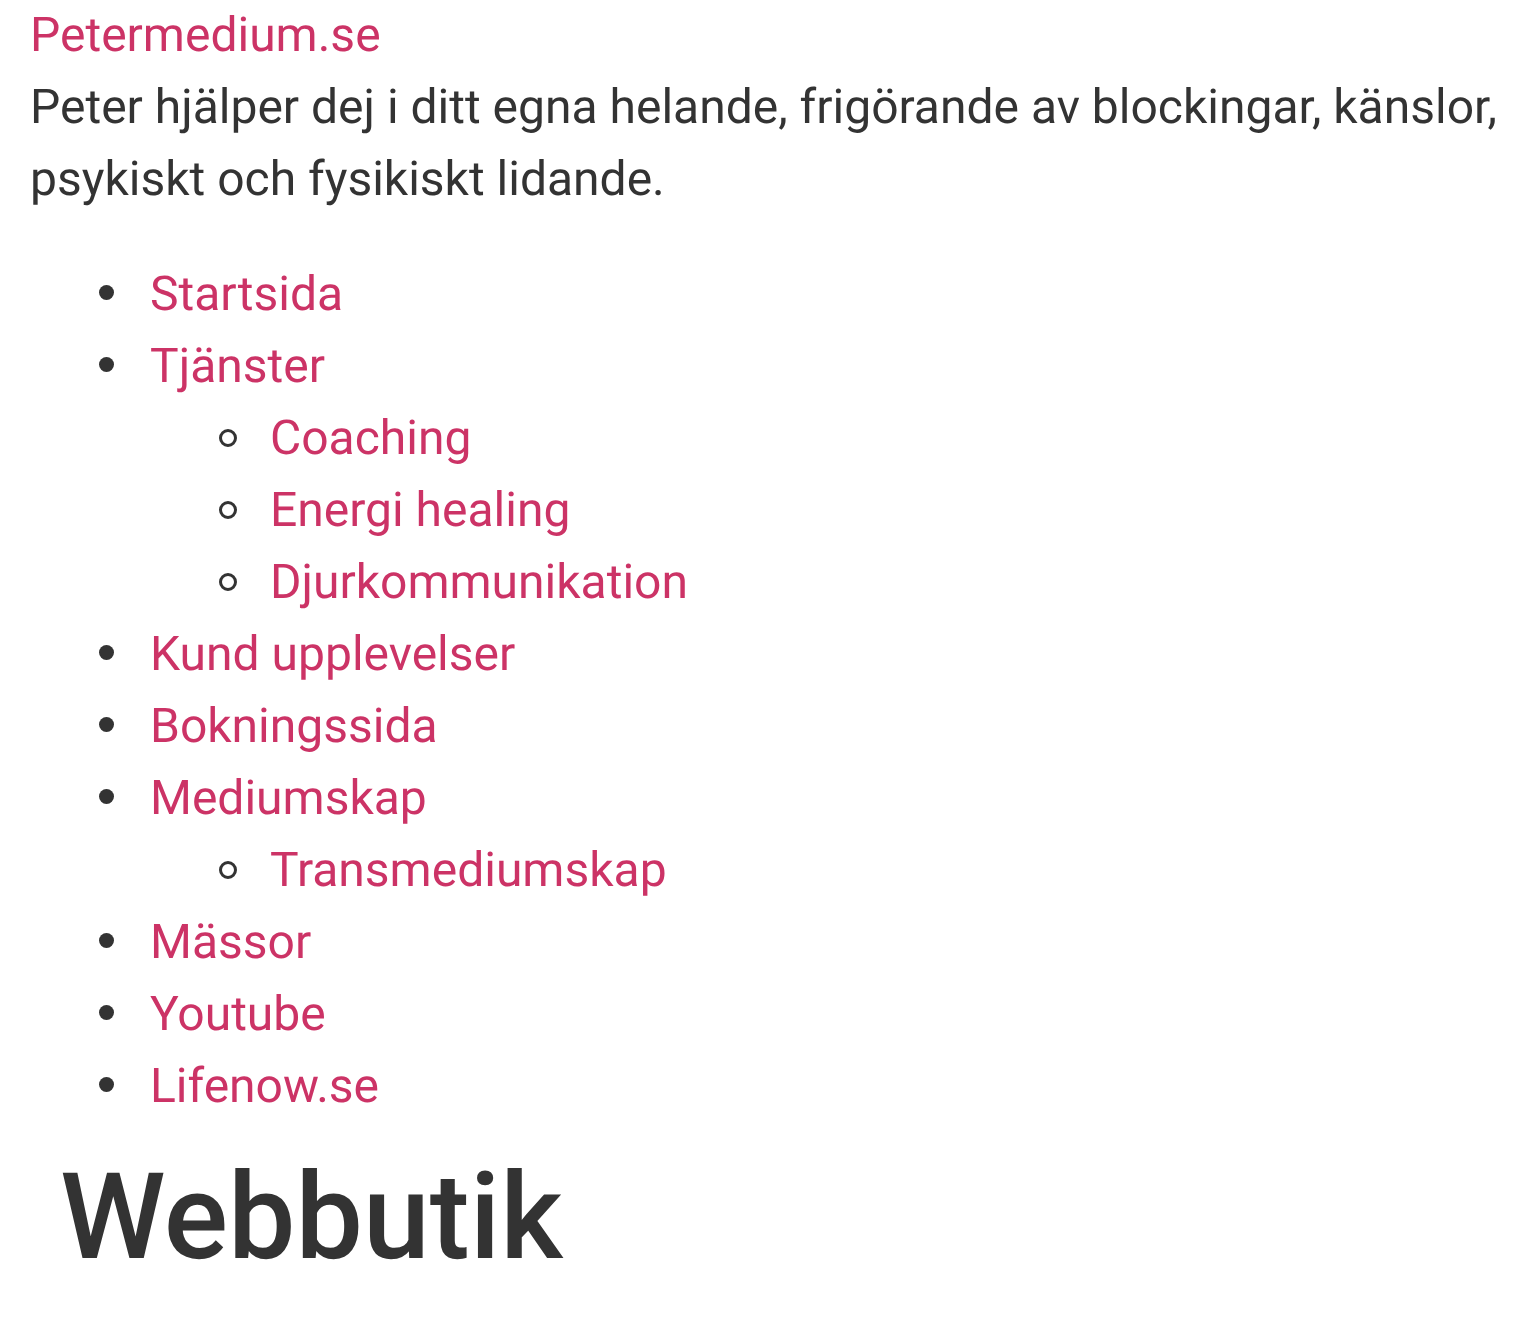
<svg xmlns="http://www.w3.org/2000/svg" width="1531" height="1342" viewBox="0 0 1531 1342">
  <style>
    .t1 { font: 48px Roboto; fill: #c36; }
    .t2 { font: 48px Roboto; fill: #333; }
    .t3 { font: 500 120px Roboto; fill: #333; }
  </style>
  <rect width="100%" height="100%" fill="#fff"/>
  <text x="30" y="51" class="t1">Petermedium.se</text>
  <text x="30" y="123" class="t2">Peter hjälper dej i ditt egna helande, frigörande av blockingar, känslor,</text>
  <text x="30" y="195" class="t2">psykiskt och fysikiskt lidande.</text>
  <circle cx="106.5" cy="292.5" r="7.5" fill="#333"/>
  <text x="150" y="310" class="t1">Startsida</text>
  <circle cx="106.5" cy="364.5" r="7.5" fill="#333"/>
  <text x="150" y="382" class="t1">Tjänster</text>
  <circle cx="228" cy="438" r="7.5" fill="none" stroke="#333" stroke-width="3"/>
  <text x="270" y="454" class="t1">Coaching</text>
  <circle cx="228" cy="510" r="7.5" fill="none" stroke="#333" stroke-width="3"/>
  <text x="270" y="526" class="t1">Energi healing</text>
  <circle cx="228" cy="582" r="7.5" fill="none" stroke="#333" stroke-width="3"/>
  <text x="270" y="598" class="t1">Djurkommunikation</text>
  <circle cx="106.5" cy="652.5" r="7.5" fill="#333"/>
  <text x="150" y="670" class="t1">Kund upplevelser</text>
  <circle cx="106.5" cy="724.5" r="7.5" fill="#333"/>
  <text x="150" y="742" class="t1">Bokningssida</text>
  <circle cx="106.5" cy="796.5" r="7.5" fill="#333"/>
  <text x="150" y="814" class="t1">Mediumskap</text>
  <circle cx="228" cy="870" r="7.5" fill="none" stroke="#333" stroke-width="3"/>
  <text x="270" y="886" class="t1">Transmediumskap</text>
  <circle cx="106.5" cy="940.5" r="7.5" fill="#333"/>
  <text x="150" y="958" class="t1">Mässor</text>
  <circle cx="106.5" cy="1012.5" r="7.5" fill="#333"/>
  <text x="150" y="1030" class="t1">Youtube</text>
  <circle cx="106.5" cy="1084.5" r="7.5" fill="#333"/>
  <text x="150" y="1102" class="t1">Lifenow.se</text>
  <text x="60" y="1258" class="t3">Webbutik</text>
</svg>
